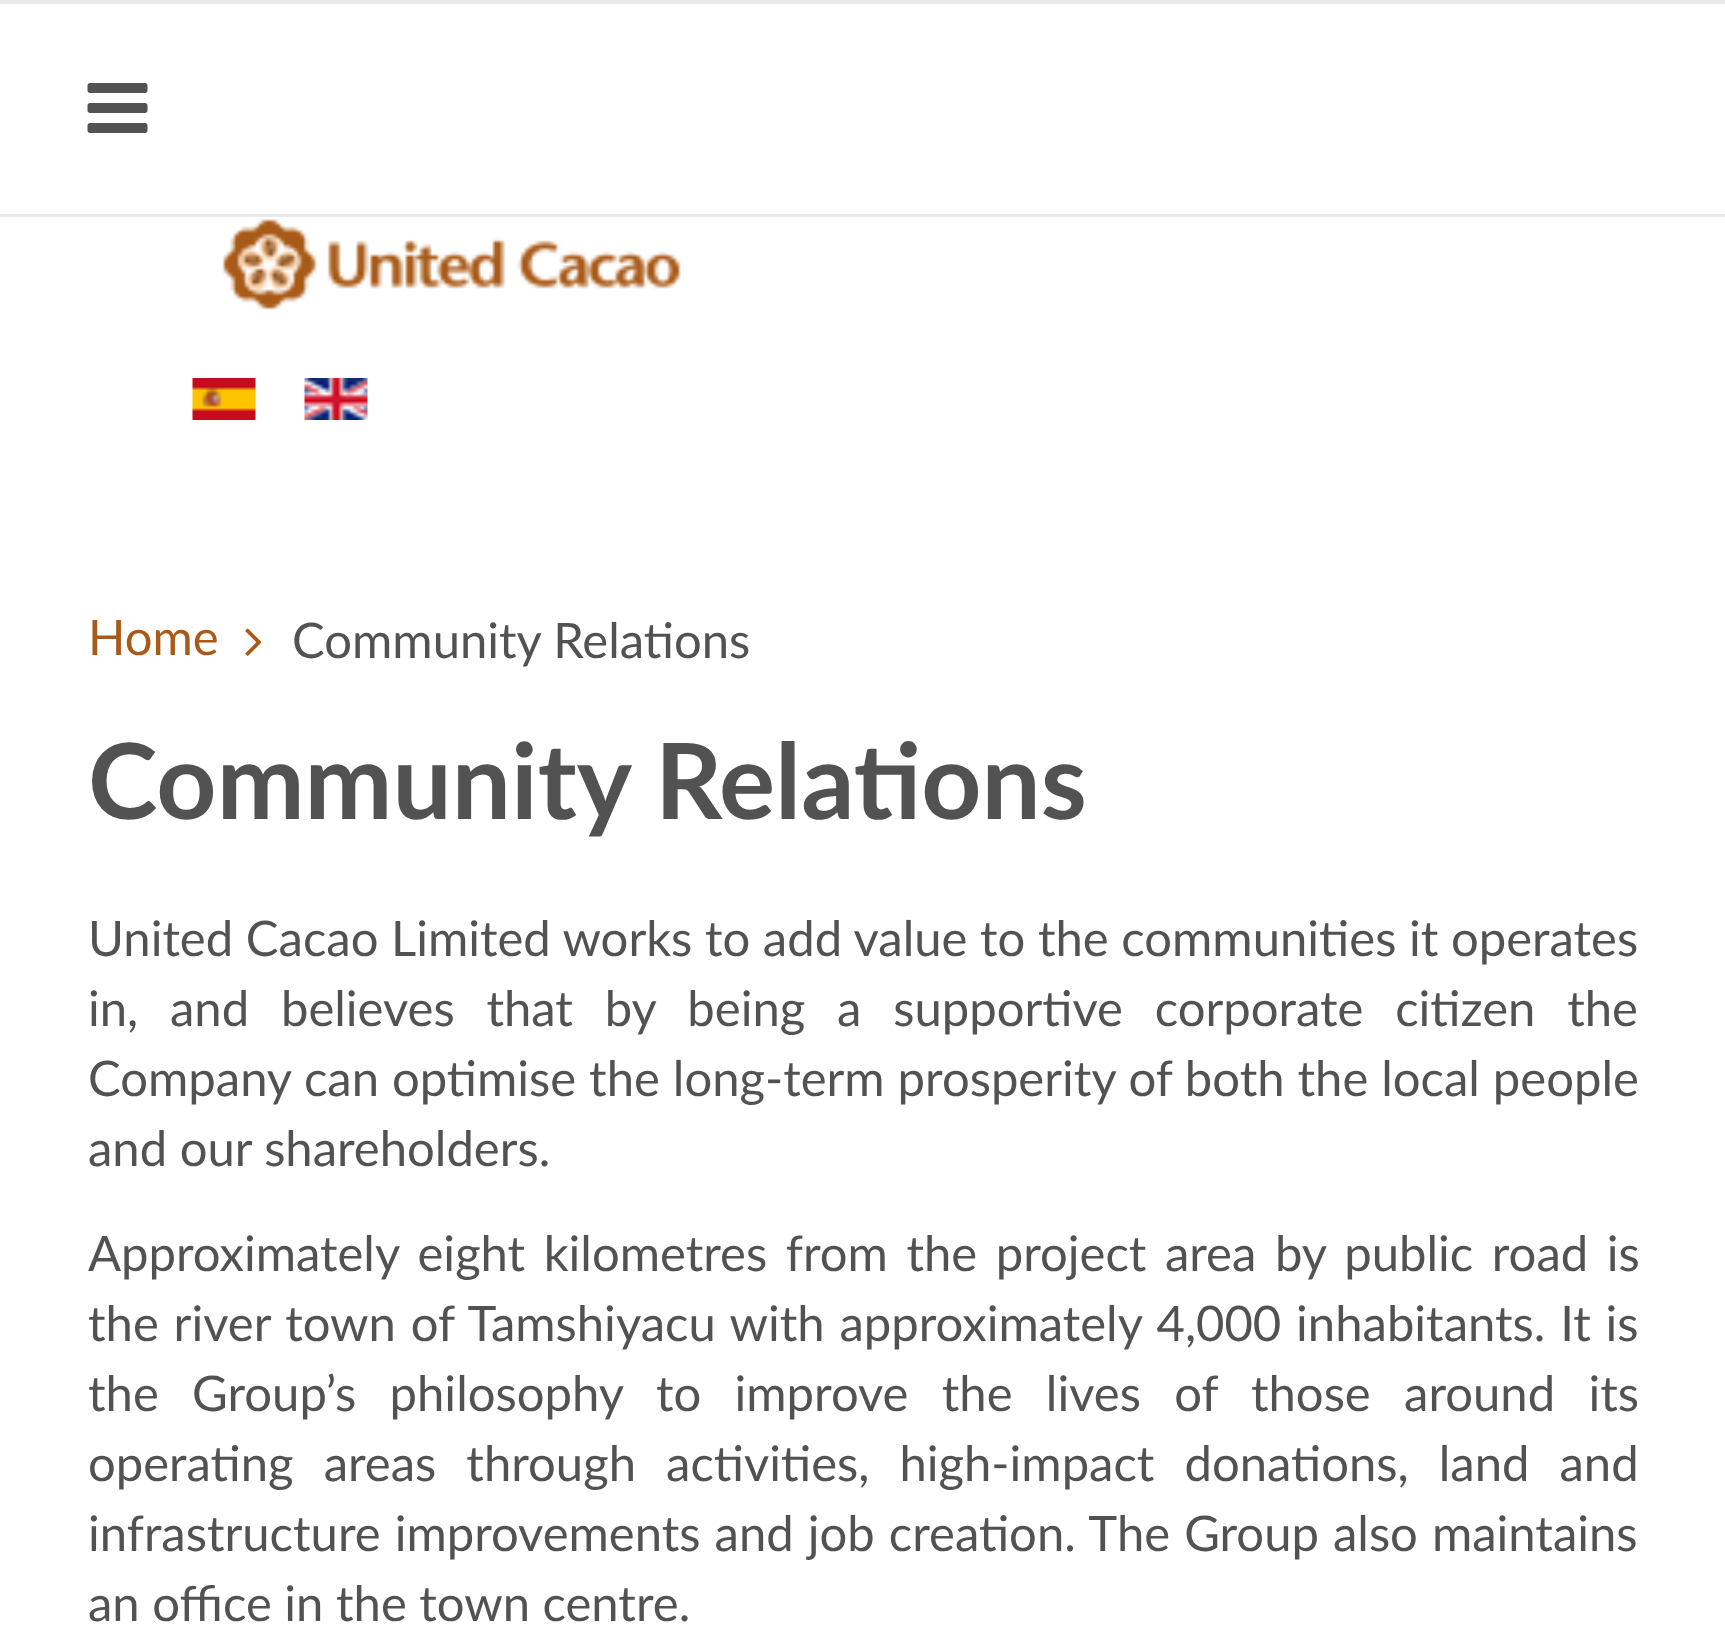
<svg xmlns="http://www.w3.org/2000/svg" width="1725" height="1643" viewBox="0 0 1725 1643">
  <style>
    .t1 { font: 49px Lato; fill: #a95a18; }
    .t2 { font: 49px Lato; fill: #525252; }
    .t3 { font: bold 105px Lato; fill: #525252; }
  </style>
  <rect width="100%" height="100%" fill="#fff"/>
  <path d="M0 214V217H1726V4V214Z" fill="#ebebeb"/>
  <rect x="0" y="0" width="1725" height="4" fill="#eaeaea"/>
  <image x="87" y="83" width="61" height="50" href="images/1.png"/>
  <image x="222" y="219" width="459" height="91" href="images/2.png"/>
  <image x="192" y="378" width="64" height="42" href="images/3.png"/>
  <image x="304" y="378" width="64" height="42" href="images/4.png"/>
  <text x="88" y="655" class="t1">Home</text>
  <image x="245" y="628" width="17" height="28" href="images/5.png"/>
  <text x="292" y="658" class="t2">Community Relations</text>
  <text x="88" y="819" class="t3">Community Relations</text>
  <text x="88" y="956" word-spacing="0.1" class="t2">United Cacao Limited works to add value to the communities it operates</text>
  <text x="88" y="1026" word-spacing="19.25" class="t2">in, and believes that by being a supportive corporate citizen the</text>
  <text x="88" y="1096" word-spacing="0.4" class="t2">Company can optimise the long-term prosperity of both the local people</text>
  <text x="88" y="1166" class="t2">and our shareholders.</text>
  <text x="88" y="1271" word-spacing="6" class="t2">Approximately eight kilometres from the project area by public road is</text>
  <text x="88" y="1341" word-spacing="2.25" class="t2">the river town of Tamshiyacu with approximately 4,000 inhabitants. It is</text>
  <text x="88" y="1411" word-spacing="20.75" class="t2">the Group’s philosophy to improve the lives of those around its</text>
  <text x="88" y="1481" word-spacing="17.5" class="t2">operating areas through activities, high-impact donations, land and</text>
  <text x="88" y="1551" word-spacing="1.5" class="t2">infrastructure improvements and job creation. The Group also maintains</text>
  <text x="88" y="1621" class="t2">an office in the town centre.</text>
</svg>
